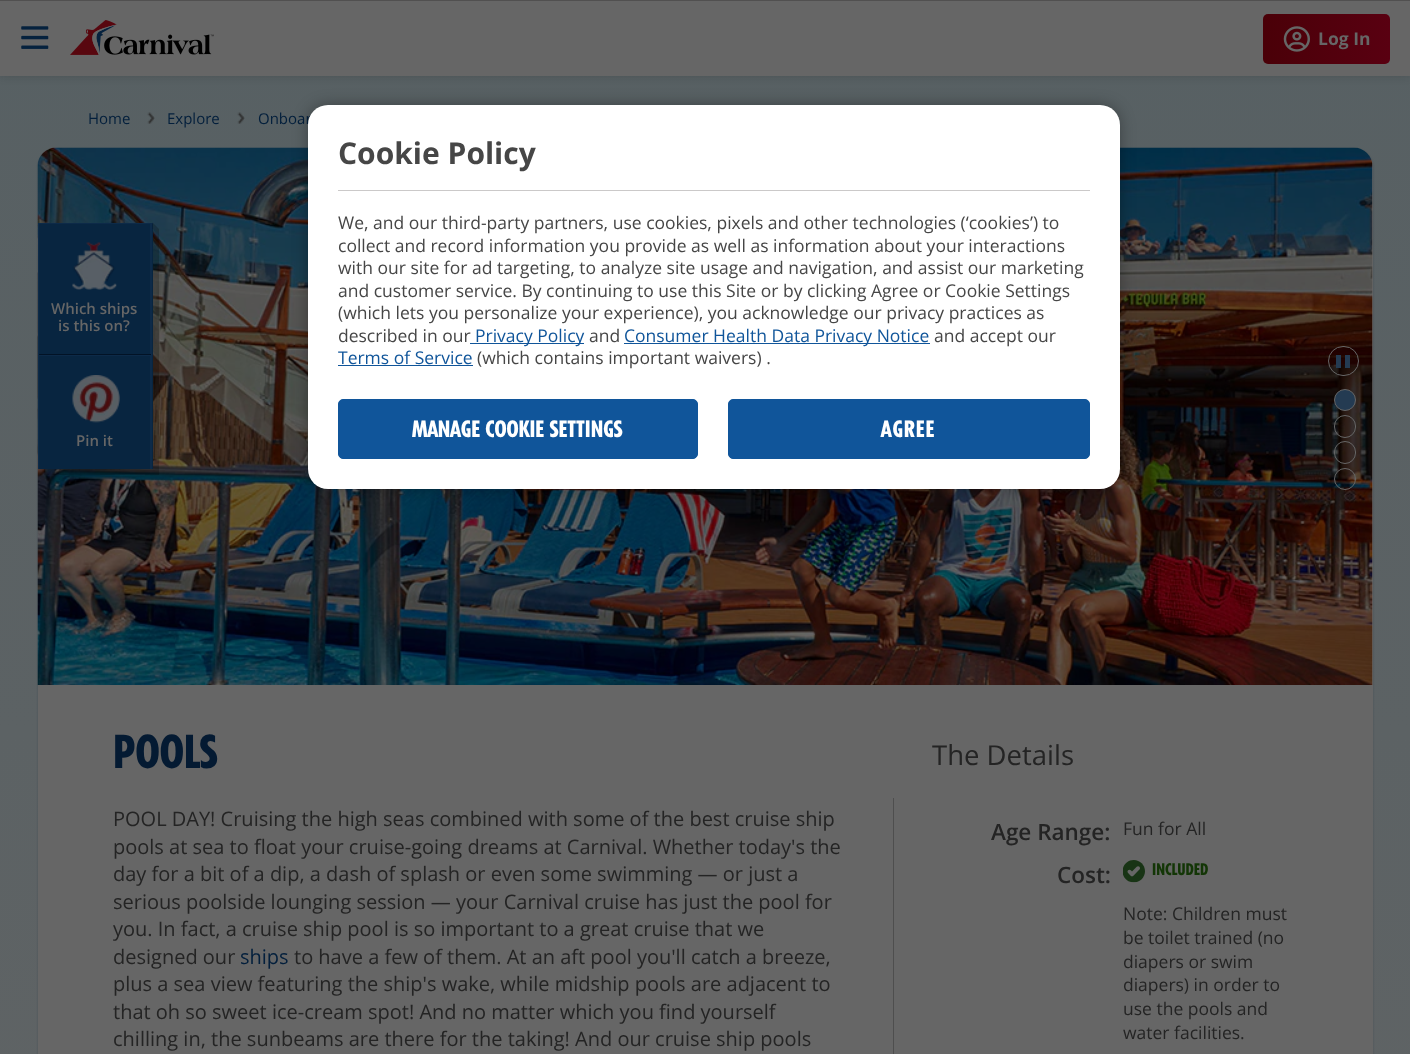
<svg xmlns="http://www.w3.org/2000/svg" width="1410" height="1054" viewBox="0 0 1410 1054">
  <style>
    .t1 { font: bold 17.5px Open Sans; fill: #666; }
    .t2 { font: 15px Open Sans; fill: #031f3c; }
    .t3 { font: 600 15px Open Sans; fill: #666; }
    .t4 { font: 900 45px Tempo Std; fill: #041a32; }
    .t5 { font: 20px Open Sans; fill: #242424; }
    .t6 { font: 20px Open Sans; fill: #031f3c; }
    .t7 { font: 27.5px Open Sans; fill: #242424; }
    .t8 { font: 600 22.5px Open Sans; fill: #242424; }
    .t9 { font: 17.5px Open Sans; fill: #242424; }
    .t10 { font: 900 16px Tempo Std; fill: #133606; }
    .t11 { font: bold 30px Open Sans; fill: #464646; }
    .t12 { font: 17.5px Open Sans; fill: #464646; }
    .t13 { font: 17.5px Open Sans; fill: #10559a; }
    .t14 { font: 900 22.5px Tempo Std; fill: #fff; }
    .t15 { font: 900 22.5px Tempo Std; letter-spacing: 1px; fill: #fff; }
  </style>
  <defs>
    <linearGradient id="g1" gradientUnits="userSpaceOnUse" x1="705" y1="0" x2="705" y2="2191"><stop offset="0" stop-color="#576063"/><stop offset="1" stop-color="#666"/></linearGradient>
    <linearGradient id="g2" gradientUnits="userSpaceOnUse" x1="1390" y1="39" x2="1263" y2="39"><stop offset="0" stop-color="#590011"/><stop offset="1" stop-color="#4a0008"/></linearGradient>
  </defs>
  <rect width="100%" height="100%" fill="#fff"/>
  <rect x="0" y="76" width="1410" height="978" fill="url(#g1)"/>
  <rect x="0" y="0" width="1410" height="76" fill="#0a0a0a2e" filter="blur(4px)"/>
  <rect x="0" y="1" width="1410" height="75" fill="#666"/>
  <rect x="0" y="0" width="1410" height="1" fill="#515050"/>
  <image x="21" y="26" width="28" height="23" href="images/1.png"/>
  <image x="70" y="20" width="144" height="35" href="images/2.png"/>
  <rect x="1263" y="14" width="127" height="50" rx="5" fill="url(#g2)"/>
  <image x="1283" y="26" width="27" height="26" href="images/3.png"/>
  <text x="1318" y="45" class="t1">Log In</text>
  <text x="88" y="124" class="t2">Home</text>
  <image x="147" y="112" width="8" height="12" href="images/4.png"/>
  <text x="167" y="124" class="t2">Explore</text>
  <image x="237" y="112" width="8" height="12" href="images/4.png"/>
  <text x="258" y="124" class="t2">Onboar</text>
  <rect x="38" y="149" width="1335" height="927" rx="19" fill="#02132433" filter="blur(1px)"/>
  <rect x="38" y="148" width="1335" height="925" rx="19" fill="#666"/>
  <image x="37" y="147" width="1336" height="538" href="images/5.png"/>
  <rect x="1328.5" y="346.5" width="30" height="29" rx="14.5" fill="none" stroke="#666"/>
  <rect x="1336" y="355" width="5" height="13" fill="#243b52"/>
  <rect x="1345" y="355" width="5" height="13" fill="#243b52"/>
  <circle cx="1345" cy="400" r="10.5" fill="#243b52" stroke="#666"/>
  <rect x="1334.5" y="415.5" width="21" height="22" rx="10.5" fill="none" stroke="#666"/>
  <rect x="1334.5" y="441.5" width="21" height="22" rx="10.5" fill="none" stroke="#666"/>
  <circle cx="1345" cy="479" r="10.5" fill="none" stroke="#666"/>
  <path d="M44 469V475H159V229H152V469Z" fill="#00000033"/>
  <rect x="39" y="224" width="114" height="245" fill="#082540"/>
  <rect x="38" y="223" width="115" height="1" fill="#0d2a48"/>
  <rect x="151" y="223" width="1" height="246" fill="#0d2a48"/>
  <rect x="38" y="223" width="1" height="246" fill="#0d2a48"/>
  <path d="M159 229H152.5V222.5Z" fill="#00000033"/>
  <rect x="39" y="354" width="112" height="1" fill="#021326"/>
  <rect x="150" y="224" width="1" height="130" fill="#0d2a48"/>
  <image x="72" y="242" width="45" height="48" href="images/6.png"/>
  <text x="51" y="314" class="t3">Which ships</text>
  <text x="58" y="331" class="t3">is this on?</text>
  <rect x="39" y="355" width="112" height="1" fill="#0d2a48"/>
  <rect x="150" y="356" width="1" height="113" fill="#0d2a48"/>
  <image x="72" y="375" width="48" height="48" href="images/7.png"/>
  <text x="76" y="446" class="t3">Pin it</text>
  <text x="113" y="768" class="t4">POOLS</text>
  <text x="113" y="826" class="t5">POOL DAY! Cruising the high seas combined with some of the best cruise ship</text>
  <text x="113" y="854" class="t5">pools at sea to float your cruise-going dreams at Carnival. Whether today's the</text>
  <text x="113" y="881" class="t5">day for a bit of a dip, a dash of splash or even some swimming — or just a</text>
  <text x="113" y="909" class="t5">serious poolside lounging session — your Carnival cruise has just the pool for</text>
  <text x="113" y="936" class="t5">you. In fact, a cruise ship pool is so important to a great cruise that we</text>
  <text x="113" y="964" class="t5">designed our</text>
  <text x="240" y="964" class="t6">ships</text>
  <text x="294" y="964" class="t5">to have a few of them. At an aft pool you'll catch a breeze,</text>
  <text x="113" y="991" class="t5">plus a sea view featuring the ship's wake, while midship pools are adjacent to</text>
  <text x="113" y="1019" class="t5">that oh so sweet ice-cream spot! And no matter which you find yourself</text>
  <text x="113" y="1046" class="t5">chilling in, the sunbeams are there for the taking! And our cruise ship pools</text>
  <rect x="893" y="798" width="1" height="256" fill="#4e4e4e"/>
  <text x="932" y="765" class="t7">The Details</text>
  <text x="991" y="840" class="t8">Age Range:</text>
  <text x="1123" y="835" class="t9">Fun for All</text>
  <text x="1057" y="883" class="t8">Cost:</text>
  <image x="1123" y="860" width="22" height="23" href="images/8.png"/>
  <text x="1152" y="875" class="t10">INCLUDED</text>
  <text x="1123" y="920" class="t9">Note: Children must</text>
  <text x="1123" y="944" class="t9">be toilet trained (no</text>
  <text x="1123" y="968" class="t9">diapers or swim</text>
  <text x="1123" y="991" class="t9">diapers) in order to</text>
  <text x="1123" y="1015" class="t9">use the pools and</text>
  <text x="1123" y="1039" class="t9">water facilities.</text>
  <rect x="308" y="105" width="812" height="384" rx="20" fill="#00000052" filter="blur(7.5px)"/>
  <rect x="308" y="105" width="812" height="384" rx="20" fill="#fff"/>
  <rect x="338" y="190" width="752" height="1" fill="#cbc9c9"/>
  <text x="338" y="164" class="t11">Cookie Policy</text>
  <text x="338" y="229" class="t12">We, and our third-party partners, use cookies, pixels and other technologies (‘cookies’) to</text>
  <text x="338" y="252" class="t12">collect and record information you provide as well as information about your interactions</text>
  <text x="338" y="274" class="t12">with our site for ad targeting, to analyze site usage and navigation, and assist our marketing</text>
  <text x="338" y="297" class="t12">and customer service. By continuing to use this Site or by clicking Agree or Cookie Settings</text>
  <text x="338" y="319" class="t12">(which lets you personalize your experience), you acknowledge our privacy practices as</text>
  <text x="338" y="342" class="t12">described in our</text>
  <rect x="470" y="343" width="114" height="1" fill="#10559a"/>
  <text x="475" y="342" class="t13">Privacy Policy</text>
  <text x="589" y="342" class="t12">and</text>
  <rect x="624" y="343" width="306" height="1" fill="#10559a"/>
  <text x="624" y="342" class="t13">Consumer Health Data Privacy Notice</text>
  <text x="934" y="342" class="t12">and accept our</text>
  <text x="338" y="364" class="t13">Terms of Service</text>
  <rect x="338" y="365" width="135" height="1" fill="#10559a"/>
  <text x="477" y="364" class="t12">(which contains important waivers) .</text>
  <rect x="338.5" y="399.5" width="359" height="59" rx="4.5" fill="#10559a" stroke="#10559a"/>
  <text x="412" y="437" class="t14">MANAGE COOKIE SETTINGS</text>
  <rect x="728.5" y="399.5" width="361" height="59" rx="4.5" fill="#10559a" stroke="#10559a"/>
  <text x="881" y="437" class="t15">AGREE</text>
</svg>
